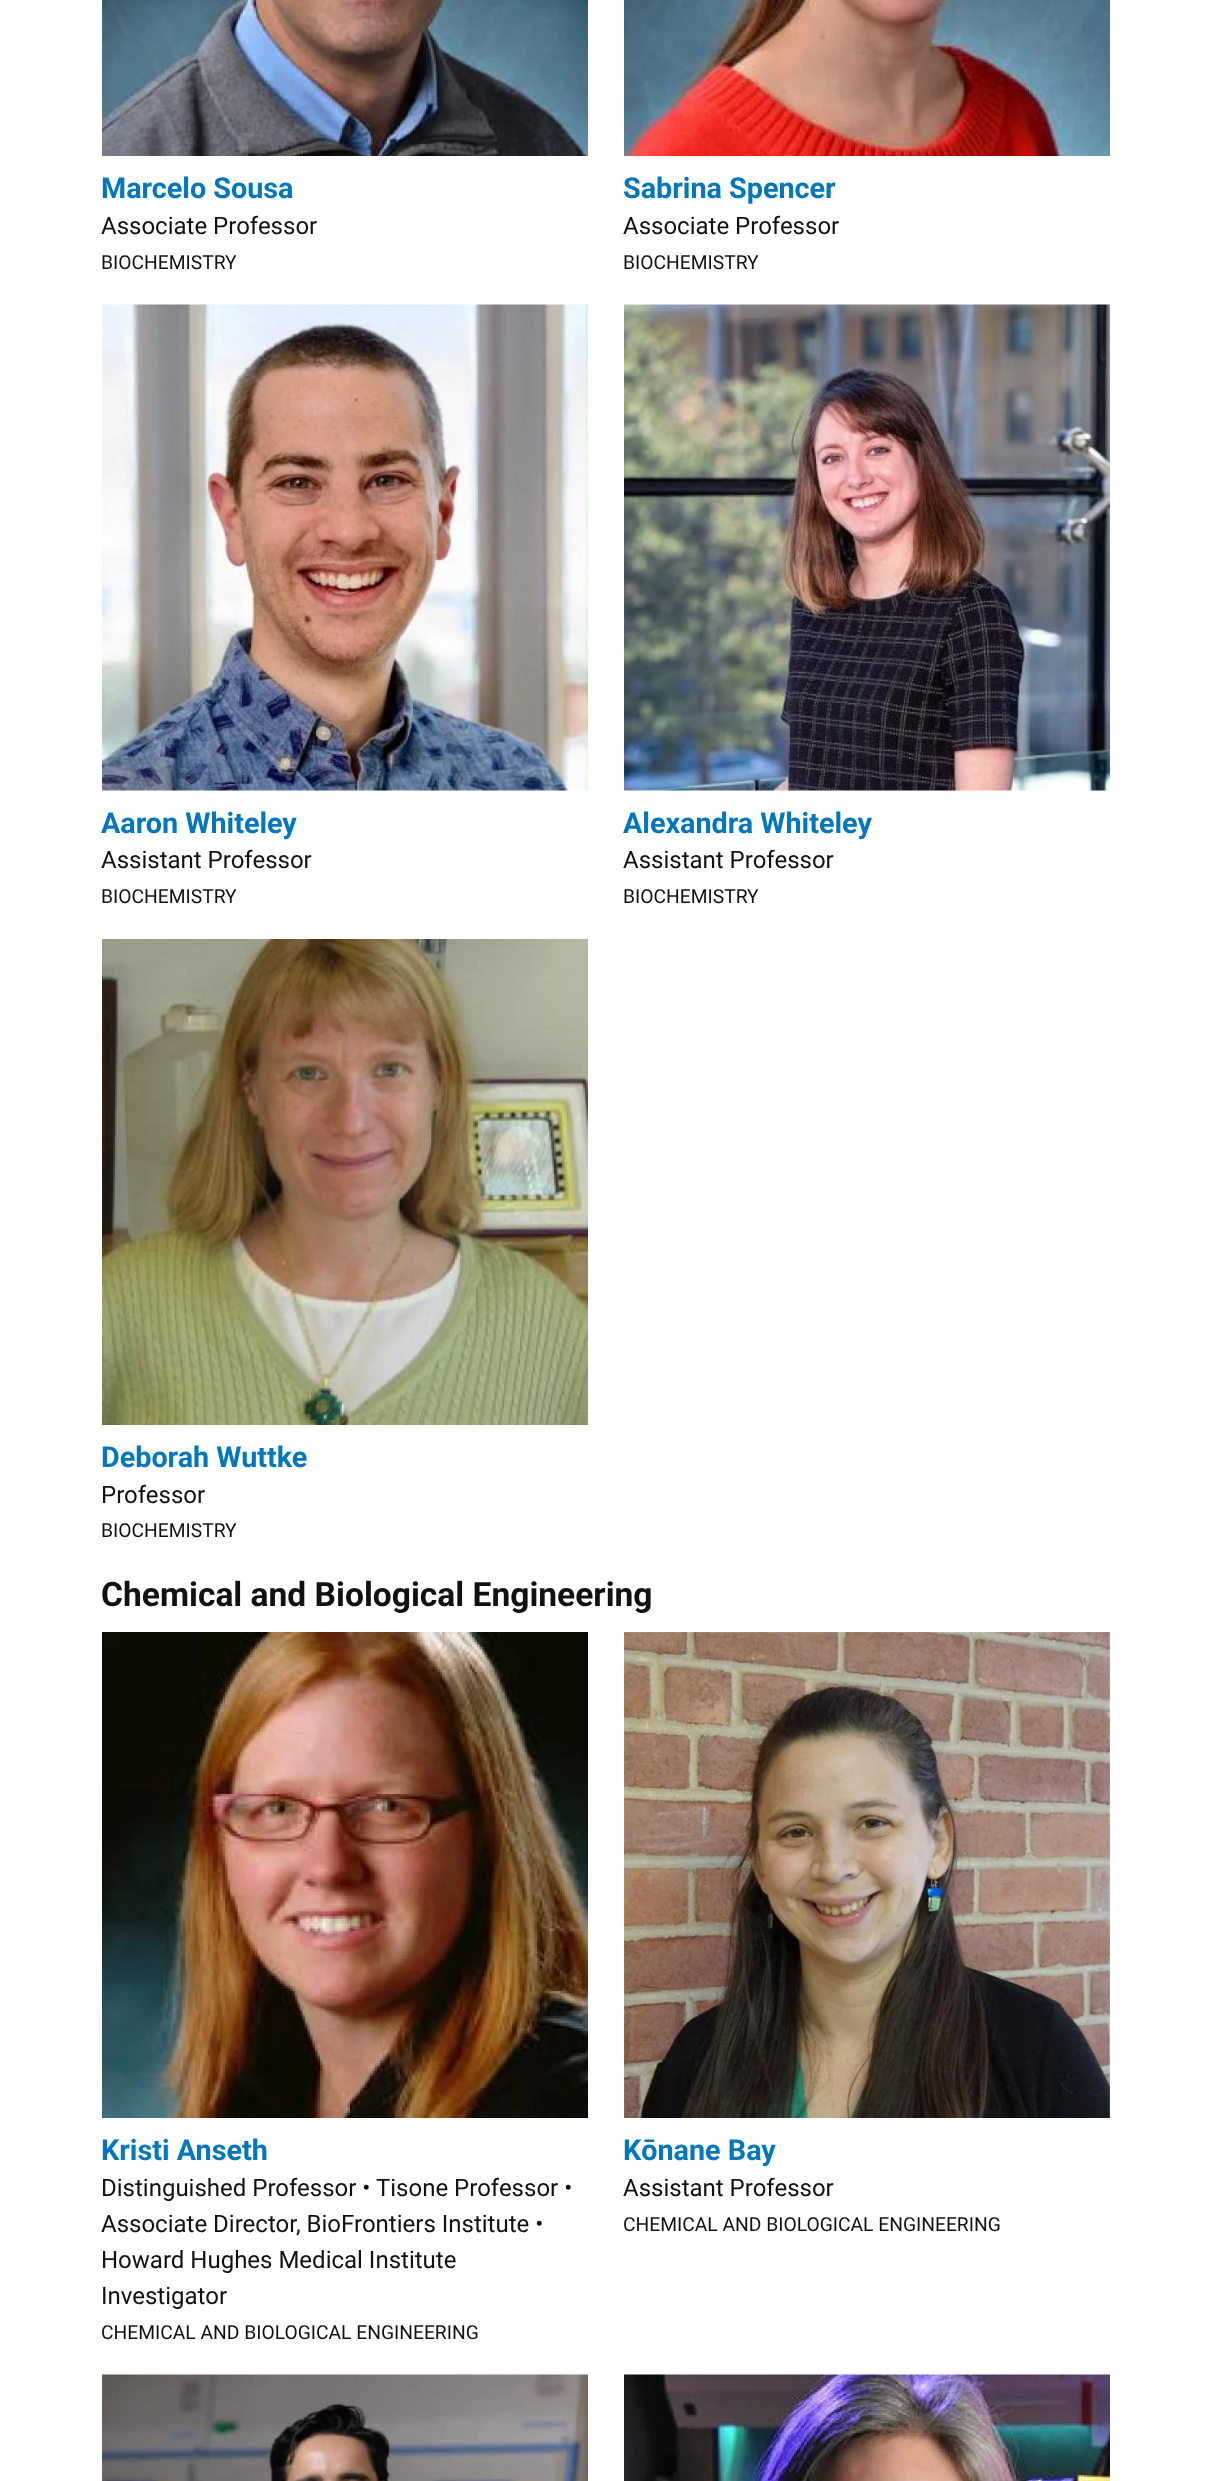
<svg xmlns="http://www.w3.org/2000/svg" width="1210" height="2481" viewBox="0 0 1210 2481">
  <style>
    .t1 { font: bold 28.75px Roboto; fill: #0277bd; }
    .t2 { font: 24px Roboto; fill: #111; }
    .t3 { font: 19.25px Roboto; fill: #111; }
    .t4 { font: bold 33.6px Roboto; fill: #111; }
  </style>
  <rect width="100%" height="100%" fill="#fff"/>
  <image x="102" y="0" width="486" height="156" href="images/1.png"/>
  <text x="101" y="198" class="t1">Marcelo Sousa</text>
  <text x="101" y="234" class="t2">Associate Professor</text>
  <text x="101" y="269" class="t3">BIOCHEMISTRY</text>
  <image x="624" y="0" width="486" height="156" href="images/2.png"/>
  <text x="623" y="198" class="t1">Sabrina Spencer</text>
  <text x="623" y="234" class="t2">Associate Professor</text>
  <text x="623" y="269" class="t3">BIOCHEMISTRY</text>
  <image x="102" y="304" width="486" height="487" href="images/3.png"/>
  <text x="101" y="833" class="t1">Aaron Whiteley</text>
  <text x="101" y="868" class="t2">Assistant Professor</text>
  <text x="101" y="903" class="t3">BIOCHEMISTRY</text>
  <image x="624" y="304" width="486" height="487" href="images/4.png"/>
  <text x="623" y="833" class="t1">Alexandra Whiteley</text>
  <text x="623" y="868" class="t2">Assistant Professor</text>
  <text x="623" y="903" class="t3">BIOCHEMISTRY</text>
  <image x="102" y="939" width="486" height="486" href="images/5.png"/>
  <text x="101" y="1467" class="t1">Deborah Wuttke</text>
  <text x="101" y="1503" class="t2">Professor</text>
  <text x="101" y="1537" class="t3">BIOCHEMISTRY</text>
  <text x="101" y="1606" class="t4">Chemical and Biological Engineering</text>
  <image x="102" y="1632" width="486" height="486" href="images/6.png"/>
  <text x="101" y="2160" class="t1">Kristi Anseth</text>
  <text x="101" y="2196" class="t2">Distinguished Professor • Tisone Professor •</text>
  <text x="101" y="2232" class="t2">Associate Director, BioFrontiers Institute •</text>
  <text x="101" y="2268" class="t2">Howard Hughes Medical Institute</text>
  <text x="101" y="2304" class="t2">Investigator</text>
  <text x="101" y="2339" class="t3">CHEMICAL AND BIOLOGICAL ENGINEERING</text>
  <image x="624" y="1632" width="486" height="486" href="images/7.png"/>
  <text x="623" y="2160" class="t1">Kōnane Bay</text>
  <text x="623" y="2196" class="t2">Assistant Professor</text>
  <text x="623" y="2231" class="t3">CHEMICAL AND BIOLOGICAL ENGINEERING</text>
  <image x="102" y="2374" width="486" height="107" href="images/8.png"/>
  <image x="624" y="2374" width="486" height="107" href="images/9.png"/>
</svg>
